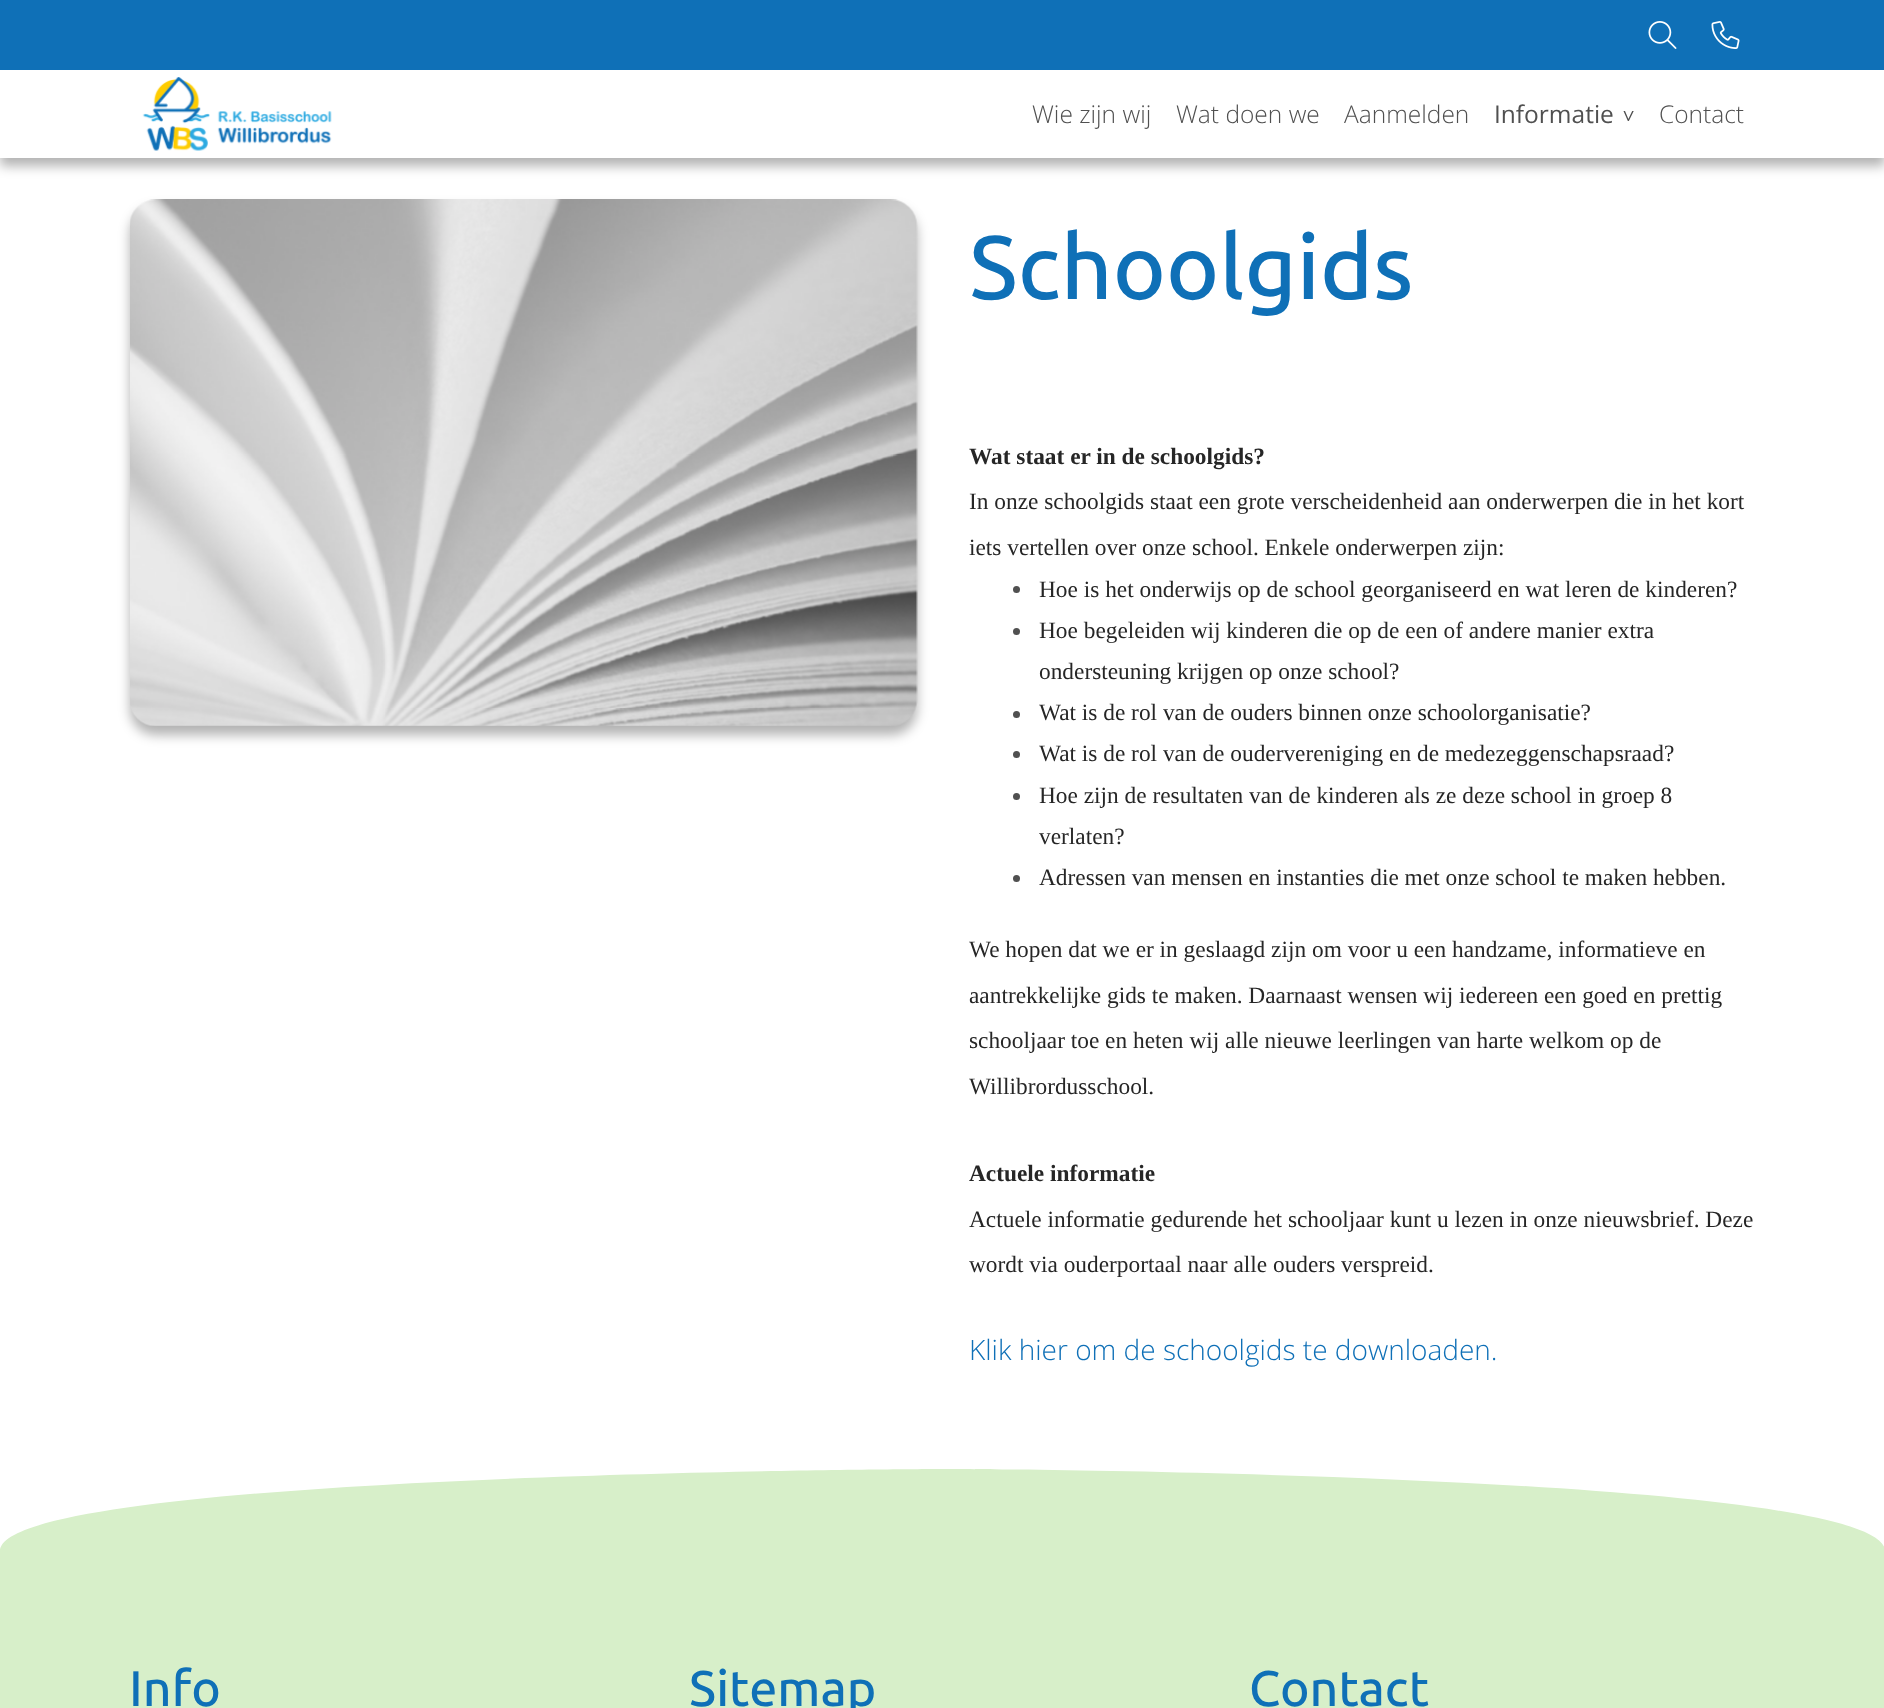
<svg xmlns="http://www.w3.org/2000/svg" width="1884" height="1708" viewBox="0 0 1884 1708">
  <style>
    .t1 { font: 300 24.5px Open Sans; fill: #505050; }
    .t2 { font: 24.5px Open Sans; fill: #505050; }
    .t3 { font: 21px Open Sans; fill: #505050; }
    .t4 { font: 500 90px Ubuntu; fill: #0f70b7; }
    .t5 { font: bold 23.35px Liberation Serif; fill: #262626; }
    .t6 { font: 23.35px Liberation Serif; fill: #262626; }
    .t7 { font: 300 28px Open Sans; fill: #0f70b7; }
    .t8 { font: 500 50px Ubuntu; fill: #0f70b7; }
  </style>
  <rect width="100%" height="100%" fill="#fff"/>
  <rect x="0" y="9" width="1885" height="157" fill="#0000004d" filter="blur(6px)"/>
  <rect x="0" y="70" width="1884" height="88" fill="#fff"/>
  <rect x="0" y="0" width="1884" height="70" fill="#0f70b7"/>
  <image x="1648" y="21" width="29" height="28" href="images/1.png"/>
  <image x="1711" y="21" width="29" height="28" href="images/2.png"/>
  <image x="142" y="77" width="190" height="74" href="images/3.png"/>
  <text x="1032" y="123" class="t1">Wie zijn wij</text>
  <text x="1176" y="123" class="t1">Wat doen we</text>
  <text x="1344" y="123" class="t1">Aanmelden</text>
  <text x="1494" y="123" class="t2">Informatie</text>
  <text x="1621" y="110" transform="rotate(90 1621 110)" class="t3">&gt;</text>
  <text x="1659" y="123" class="t1">Contact</text>
  <rect x="130" y="208" width="787" height="527" rx="26" fill="#0000004d" filter="blur(6px)"/>
  <image x="130" y="199" width="788" height="527" href="images/4.png"/>
  <text x="969" y="299" class="t4">Schoolgids</text>
  <text x="969" y="464" class="t5">Wat staat er in de schoolgids?</text>
  <text x="969" y="509" class="t6">In onze schoolgids staat een grote verscheidenheid aan onderwerpen die in het kort</text>
  <text x="969" y="555" class="t6">iets vertellen over onze school. Enkele onderwerpen zijn:</text>
  <circle cx="1016.5" cy="589.5" r="3.5" fill="#505050"/>
  <text x="1039" y="597" class="t6">Hoe is het onderwijs op de school georganiseerd en wat leren de kinderen?</text>
  <circle cx="1016.5" cy="631.5" r="3.5" fill="#505050"/>
  <text x="1039" y="638" class="t6">Hoe begeleiden wij kinderen die op de een of andere manier extra</text>
  <text x="1039" y="679" class="t6">ondersteuning krijgen op onze school?</text>
  <circle cx="1016.5" cy="714.5" r="3.5" fill="#505050"/>
  <text x="1039" y="720" class="t6">Wat is de rol van de ouders binnen onze schoolorganisatie?</text>
  <circle cx="1016.5" cy="754.5" r="3.5" fill="#505050"/>
  <text x="1039" y="761" class="t6">Wat is de rol van de oudervereniging en de medezeggenschapsraad?</text>
  <circle cx="1016.5" cy="796.5" r="3.5" fill="#505050"/>
  <text x="1039" y="803" class="t6">Hoe zijn de resultaten van de kinderen als ze deze school in groep 8</text>
  <text x="1039" y="844" class="t6">verlaten?</text>
  <circle cx="1016.5" cy="878.5" r="3.5" fill="#505050"/>
  <text x="1039" y="885" class="t6">Adressen van mensen en instanties die met onze school te maken hebben.</text>
  <text x="969" y="957" class="t6">We hopen dat we er in geslaagd zijn om voor u een handzame, informatieve en</text>
  <text x="969" y="1003" class="t6">aantrekkelijke gids te maken. Daarnaast wensen wij iedereen een goed en prettig</text>
  <text x="969" y="1048" class="t6">schooljaar toe en heten wij alle nieuwe leerlingen van harte welkom op de</text>
  <text x="969" y="1094" class="t6">Willibrordusschool.</text>
  <text x="969" y="1181" class="t5">Actuele informatie</text>
  <text x="969" y="1227" class="t6">Actuele informatie gedurende het schooljaar kunt u lezen in onze nieuwsbrief. Deze</text>
  <text x="969" y="1272" class="t6">wordt via ouderportaal naar alle ouders verspreid.</text>
  <text x="969" y="1360" class="t7">Klik hier om de schoolgids te downloaden.</text>
  <rect x="0" y="1469" width="1884" height="239" fill="#d7efc9"/>
  <path d="M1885 1420H0V1551C0 1473 917 1469 942 1469C968 1469 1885 1473 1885 1551Z" fill="#fff"/>
  <text x="129" y="1706" class="t8">Info</text>
  <text x="689" y="1706" class="t8">Sitemap</text>
  <text x="1249" y="1706" class="t8">Contact</text>
</svg>
